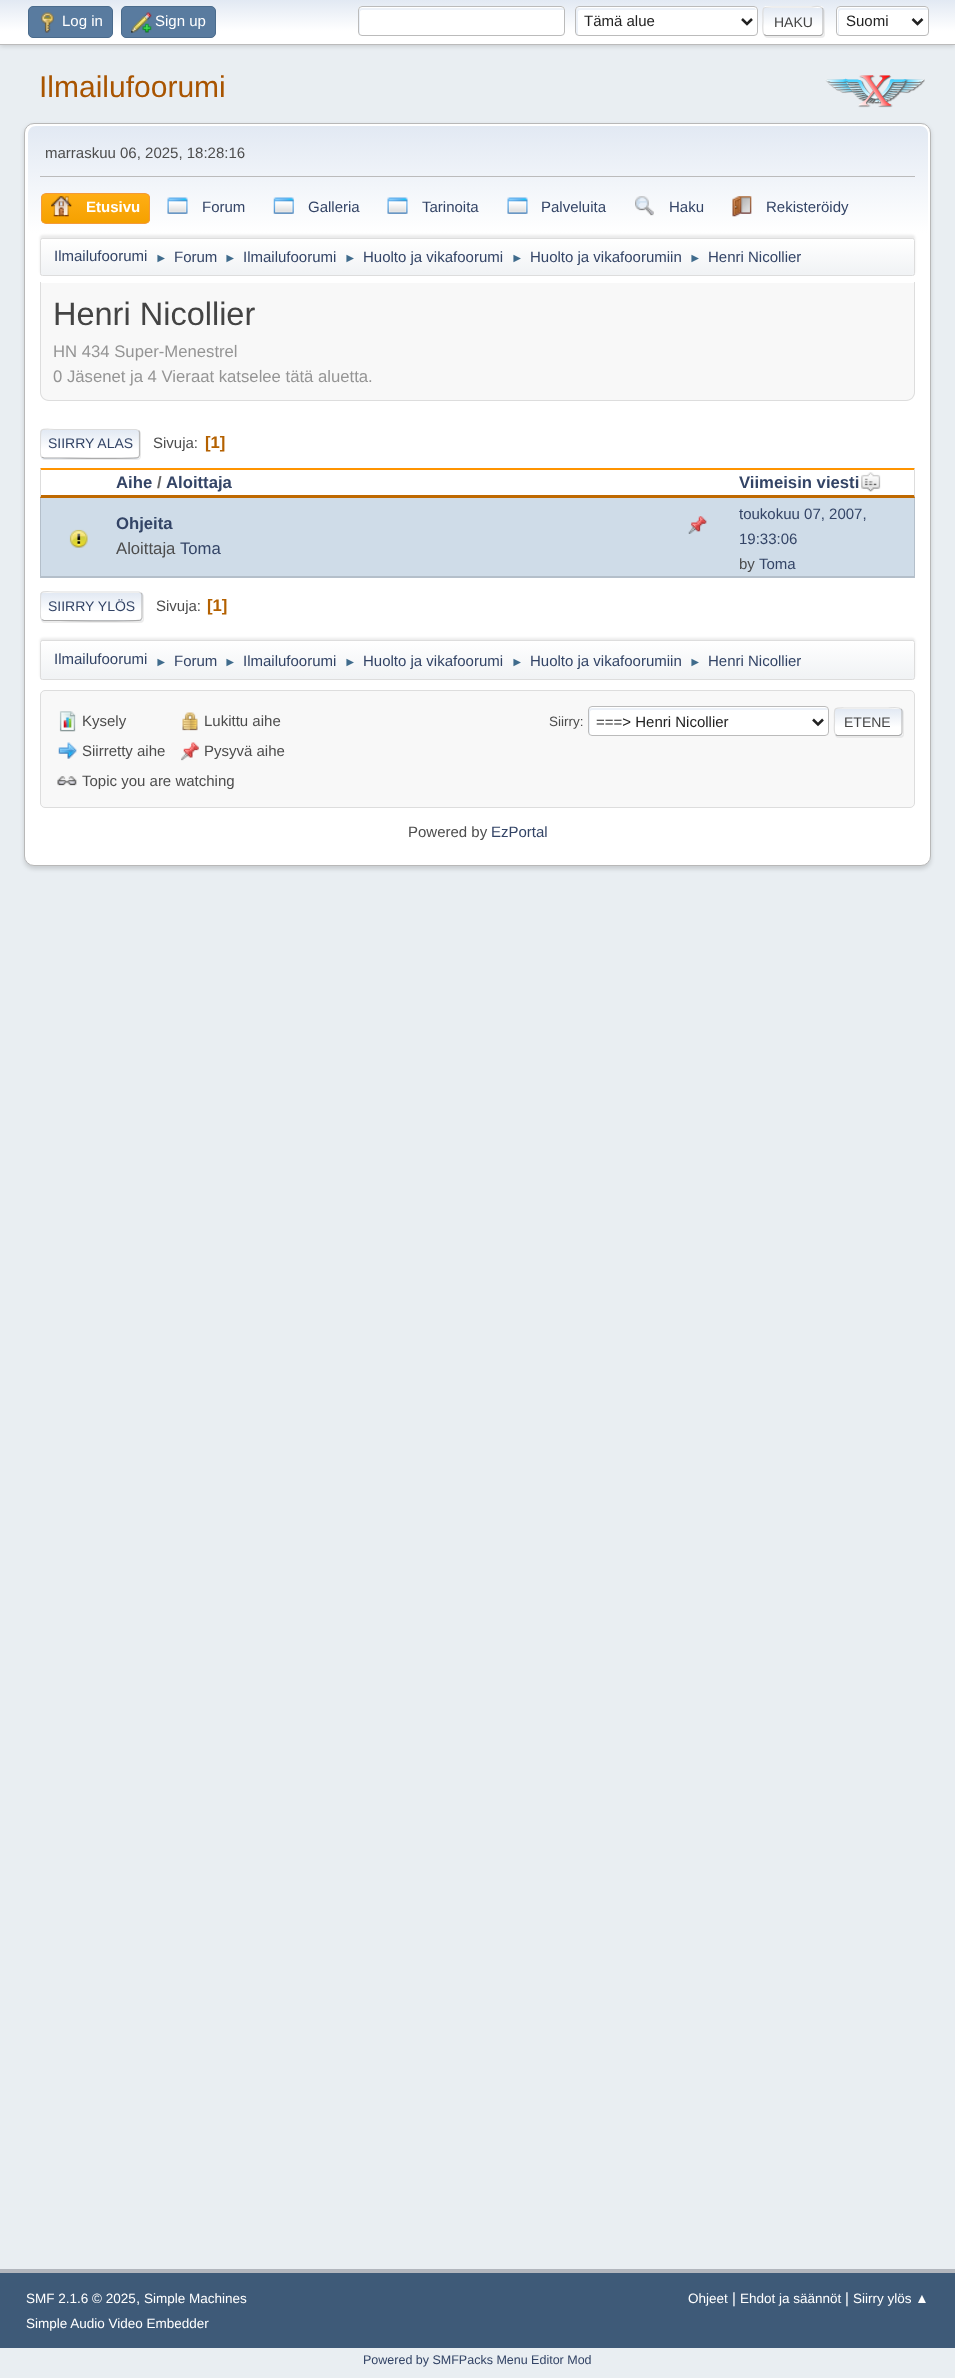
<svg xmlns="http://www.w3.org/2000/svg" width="955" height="2378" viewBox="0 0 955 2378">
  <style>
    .t1 { font: 15px Liberation Sans; fill: #fff; }
    .t2 { font: 15px Liberation Sans; fill: #222; }
    .t3 { font: 14px Liberation Sans; fill: #444; }
    .t4 { font: 30px Liberation Sans; fill: #a85400; }
    .t5 { font: 15px Liberation Sans; fill: #4d4d4d; }
    .t6 { font: bold 15px Liberation Sans; fill: #fff; }
    .t7 { font: 15px Liberation Sans; fill: #346; }
    .t8 { font: 12.5px Liberation Sans; fill: #3f6b8c; }
    .t9 { font: 32.5px Liberation Sans; fill: #444; }
    .t10 { font: 16.7px Liberation Sans; fill: #959595; }
    .t11 { font: 14px Liberation Sans; fill: #346; }
    .t12 { font: bold 16.7px Liberation Sans; fill: #b46100; }
    .t13 { font: bold 16.7px Liberation Sans; fill: #346; }
    .t14 { font: bold 16.7px Liberation Sans; fill: #666; }
    .t15 { font: 16.7px Liberation Sans; fill: #4d4d4d; }
    .t16 { font: 16.7px Liberation Sans; fill: #346; }
    .t17 { font: 13.5px Liberation Sans; fill: #4d4d4d; }
    .t18 { font: 13.5px Liberation Sans; fill: #fff; }
    .t19 { font: 12.5px Liberation Sans; fill: #346; }
  </style>
  <defs>
    <linearGradient id="g1" gradientUnits="userSpaceOnUse" x1="478" y1="0" x2="478" y2="44"><stop offset="0" stop-color="#e2e9f3"/><stop offset="0.7" stop-color="#fff"/></linearGradient>
    <clipPath id="clip1"><rect x="763" y="6" width="61" height="30" rx="4"/></clipPath>
    <linearGradient id="g2" gradientUnits="userSpaceOnUse" x1="793" y1="-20" x2="793" y2="7.5"><stop offset="0" stop-color="#e2e9f3"/><stop offset="0.7" stop-color="#fff"/></linearGradient>
    <linearGradient id="g3" gradientUnits="userSpaceOnUse" x1="793" y1="7.5" x2="793" y2="35"><stop offset="0" stop-color="#e2e9f3"/><stop offset="0.7" stop-color="#fff"/></linearGradient>
    <linearGradient id="g4" gradientUnits="userSpaceOnUse" x1="478" y1="126" x2="478" y2="279"><stop offset="0" stop-color="#e2e9f3"/><stop offset="0.7" stop-color="#fff"/></linearGradient>
    <clipPath id="clip2"><rect x="41" y="193" width="109" height="31" rx="5"/></clipPath>
    <linearGradient id="g5" gradientUnits="userSpaceOnUse" x1="96" y1="194" x2="96" y2="223"><stop offset="0" stop-color="#ffae14"/><stop offset="1" stop-color="#f5a100"/></linearGradient>
    <clipPath id="clip3"><rect x="40" y="238" width="875" height="38" rx="2.5"/></clipPath>
    <linearGradient id="g6" gradientUnits="userSpaceOnUse" x1="478" y1="239" x2="478" y2="275"><stop offset="0" stop-color="#fff"/><stop offset="0.95" stop-color="#f1f3f5"/></linearGradient>
    <clipPath id="clip4"><rect x="40" y="429" width="100" height="30" rx="4"/></clipPath>
    <linearGradient id="g7" gradientUnits="userSpaceOnUse" x1="90" y1="430" x2="90" y2="458"><stop offset="0" stop-color="#e2e9f3"/><stop offset="0.7" stop-color="#fff"/></linearGradient>
    <linearGradient id="g8" gradientUnits="userSpaceOnUse" x1="90" y1="458" x2="90" y2="485"><stop offset="0" stop-color="#e2e9f3"/><stop offset="0.7" stop-color="#fff"/></linearGradient>
    <clipPath id="clip5"><rect x="40" y="420" width="875" height="48"/></clipPath>
    <clipPath id="clip6"><rect x="40" y="591" width="103" height="30" rx="4"/></clipPath>
    <linearGradient id="g9" gradientUnits="userSpaceOnUse" x1="91" y1="593" x2="91" y2="620"><stop offset="0" stop-color="#e2e9f3"/><stop offset="0.7" stop-color="#fff"/></linearGradient>
    <linearGradient id="g10" gradientUnits="userSpaceOnUse" x1="91" y1="620" x2="91" y2="648"><stop offset="0" stop-color="#e2e9f3"/><stop offset="0.7" stop-color="#fff"/></linearGradient>
    <clipPath id="clip7"><rect x="40" y="583" width="875" height="47"/></clipPath>
    <clipPath id="clip8"><rect x="40" y="640" width="875" height="40" rx="2.5"/></clipPath>
    <linearGradient id="g11" gradientUnits="userSpaceOnUse" x1="478" y1="641" x2="478" y2="679"><stop offset="0" stop-color="#fff"/><stop offset="0.95" stop-color="#f1f3f5"/></linearGradient>
    <clipPath id="clip9"><rect x="834" y="708" width="69" height="28" rx="4"/></clipPath>
    <linearGradient id="g12" gradientUnits="userSpaceOnUse" x1="868" y1="709" x2="868" y2="735"><stop offset="0" stop-color="#e2e9f3"/><stop offset="0.7" stop-color="#fff"/></linearGradient>
    <linearGradient id="g13" gradientUnits="userSpaceOnUse" x1="868" y1="735" x2="868" y2="761"><stop offset="0" stop-color="#e2e9f3"/><stop offset="0.7" stop-color="#fff"/></linearGradient>
  </defs>
  <rect width="100%" height="100%" fill="#e9eef2"/>
  <rect x="0" y="1" width="955" height="45" fill="#00000029" filter="blur(2.5px)"/>
  <rect x="0" y="0" width="955" height="44" fill="url(#g1)"/>
  <rect x="0" y="44" width="955" height="1" fill="#bbb"/>
  <rect x="28.5" y="6.5" width="84" height="31" rx="4.5" fill="#597b9f" stroke="#4a6b8c"/>
  <image x="41" y="12" width="13" height="21" href="images/1.png"/>
  <text x="62" y="26" class="t1">Log in</text>
  <rect x="121.5" y="6.5" width="94" height="31" rx="4.5" fill="#597b9f" stroke="#4a6b8c"/>
  <image x="131" y="12" width="21" height="21" href="images/2.png"/>
  <text x="155" y="26" class="t1">Sign up</text>
  <rect x="358" y="6" width="207" height="30" rx="4" fill="#fff"/>
  <path d="M362 10H562H564C564 9 563 8 562 8H362C360 8 359 9 359 10V32C359 33 359 34 360 35V12C360 11 361 10 362 10Z" fill="#ecf1f8"/>
  <rect x="358.5" y="6.5" width="206" height="29" rx="3.5" fill="none" stroke="#bbb"/>
  <rect x="575" y="6" width="183" height="30" rx="4" fill="#fff"/>
  <path d="M580 10H756C756 9 755 8 754 8H578C577 8 576 9 576 10V32C576 34 577 35 578 35V12C578 11 579 10 580 10Z" fill="#ecf1f8"/>
  <rect x="575.5" y="6.5" width="182" height="29" rx="3.5" fill="none" stroke="#bbb"/>
  <path d="M742 19L747 24L752 19" fill="none" stroke="#222" stroke-width="2.5"/>
  <text x="584" y="26" class="t2">Tämä alue</text>
  <rect x="764" y="8" width="61" height="30" rx="4" fill="#dddddd91" filter="blur(0.5px)"/>
  <g clip-path="url(#clip1)">
    <rect x="763" y="6" width="61" height="2" fill="url(#g2)"/>
    <rect x="763" y="8" width="61" height="27" fill="url(#g3)"/>
  </g>
  <path d="M822 8C823 8.5 823 9 823 10V32.5C823 33.5 823 34 822 34.5" fill="none" stroke="#bbb" stroke-width="1.2"/>
  <path d="M822 34.5L820.5 35.5H766L764 34.5" fill="none" stroke="#aaa" stroke-width="1.2"/>
  <path d="M764 34.5C762 32.5 763 24 763 21C763 6 760.5 7 775 7H811C815 7 819.5 5 822 8" fill="none" stroke="#ddd" stroke-width="1.2"/>
  <text x="774" y="27" class="t3">HAKU</text>
  <rect x="836" y="6" width="93" height="30" rx="4" fill="#fff"/>
  <path d="M841 10H926H928C928 9 927 8 926 8H840C839 8 838 9 838 10V32C838 33 838 34 839 35V12C839 11 840 10 841 10Z" fill="#ecf1f8"/>
  <rect x="836.5" y="6.5" width="92" height="29" rx="3.5" fill="none" stroke="#bbb"/>
  <path d="M912.5 19L917.5 24L922.5 19" fill="none" stroke="#222" stroke-width="2.5"/>
  <text x="846" y="26" class="t2">Suomi</text>
  <text x="39" y="97" class="t4">Ilmailufoorumi</text>
  <image x="825" y="75" width="100" height="33" href="images/3.png"/>
  <rect x="24" y="125" width="907" height="744" rx="10" fill="#00000024" filter="blur(2px)"/>
  <rect x="24.5" y="123.5" width="906" height="742" rx="9.5" fill="#fff" stroke="#b8b8b8"/>
  <path d="M36 126H920C924.5 126 928 129.5 928 134V279H28V134C28 129.5 31.5 126 36 126Z" fill="url(#g4)"/>
  <rect x="40" y="176" width="875" height="1" fill="#bbb"/>
  <text x="45" y="158" class="t5">marraskuu 06, 2025, 18:28:16</text>
  <g clip-path="url(#clip2)">
    <rect x="41" y="194" width="109" height="29" fill="url(#g5)"/>
  </g>
  <rect x="41.5" y="193.5" width="108" height="30" rx="4.5" fill="none" stroke="#f49a3a"/>
  <image x="51" y="196" width="21" height="21" href="images/4.png"/>
  <text x="86" y="212" class="t6">Etusivu</text>
  <image x="167" y="197" width="21" height="17" href="images/5.png"/>
  <text x="202" y="212" class="t7">Forum</text>
  <image x="273" y="197" width="21" height="17" href="images/6.png"/>
  <text x="308" y="212" class="t7">Galleria</text>
  <image x="387" y="197" width="21" height="17" href="images/7.png"/>
  <text x="422" y="212" class="t7">Tarinoita</text>
  <image x="507" y="197" width="21" height="17" href="images/5.png"/>
  <text x="541" y="212" class="t7">Palveluita</text>
  <image x="635" y="196" width="19" height="20" href="images/8.png"/>
  <text x="669" y="212" class="t7">Haku</text>
  <image x="732" y="196" width="20" height="21" href="images/9.png"/>
  <text x="766" y="212" class="t7">Rekisteröidy</text>
  <rect x="40" y="235" width="875" height="39" rx="2.5" fill="#00000014" filter="blur(1px)"/>
  <g clip-path="url(#clip3)">
    <rect x="40" y="239" width="875" height="36" fill="url(#g6)"/>
  </g>
  <rect x="40.5" y="238.5" width="874" height="37" rx="2" fill="none" stroke="#ddd"/>
  <text x="54" y="261" class="t7">Ilmailufoorumi</text>
  <text x="155" y="262" class="t8">►</text>
  <text x="174" y="262" class="t7">Forum</text>
  <text x="224" y="262" class="t8">►</text>
  <text x="243" y="262" class="t7">Ilmailufoorumi</text>
  <text x="344" y="262" class="t8">►</text>
  <text x="363" y="262" class="t7">Huolto ja vikafoorumi</text>
  <text x="511" y="262" class="t8">►</text>
  <text x="530" y="262" class="t7">Huolto ja vikafoorumiin</text>
  <text x="689" y="262" class="t8">►</text>
  <text x="708" y="262" class="t7">Henri Nicollier</text>
  <path d="M40 283H915V392C915 397 911 401 906 401H49C44 401 40 397 40 392Z" fill="#f8f8f8"/>
  <path d="M40 282H915V392C915 397 911 401 906 401H49C44 401 40 397 40 392ZM41 282H914V392C914 397 910 400 906 400H49C45 400 41 397 41 392Z" fill="#ddd" fill-rule="evenodd"/>
  <text x="53" y="325" class="t9">Henri Nicollier</text>
  <text x="53" y="357" class="t10">HN 434 Super-Menestrel</text>
  <text x="53" y="382" class="t10">0 Jäsenet ja 4 Vieraat katselee tätä aluetta.</text>
  <rect x="41" y="430" width="100" height="30" rx="4" fill="#dddddd91" filter="blur(0.5px)"/>
  <rect x="40" y="429" width="100" height="30" rx="4" fill="#fff"/>
  <g clip-path="url(#clip4)">
    <rect x="40" y="430" width="100" height="28" fill="url(#g7)"/>
    <rect x="40" y="458" width="100" height="1" fill="url(#g8)"/>
  </g>
  <path d="M138.5 430.5C139 431 139.5 431.5 139.5 432.5V455C139.5 456 139 456.5 138.5 457" fill="none" stroke="#bbb" stroke-width="1.2"/>
  <path d="M138.5 457L138 457.5C136 459 67.5 458 59 458H44L41.5 457" fill="none" stroke="#aaa" stroke-width="1.2"/>
  <g clip-path="url(#clip5)">
    <path d="M41.5 457C39.5 455 40.5 446.5 40.5 444C40.5 425.5 38.5 429.5 59 429.5H136L138.5 430.5" fill="none" stroke="#ddd" stroke-width="1.2"/>
  </g>
  <text x="48" y="448" class="t11">SIIRRY ALAS</text>
  <text x="153" y="448" class="t5">Sivuja:</text>
  <text x="205" y="448" class="t12">[1]</text>
  <path d="M40 468H915L914 470H41Z" fill="#ff9400"/>
  <path d="M915 467.5V497.5L914 495V470Z" fill="#ddd"/>
  <path d="M915 498H40L41 495H914Z" fill="#bf6900"/>
  <path d="M40 497.5V467.5L41 470V495Z" fill="#ddd"/>
  <text x="116" y="488" class="t13">Aihe</text>
  <text x="157" y="488" class="t14">/</text>
  <text x="166" y="488" class="t13">Aloittaja</text>
  <text x="739" y="488" class="t13">Viimeisin viesti</text>
  <image x="861" y="472" width="20" height="20" href="images/10.png"/>
  <rect x="40" y="498" width="875" height="80" fill="#cfdce8"/>
  <path d="M915 498V578L914 576V498Z" fill="#b4bfca"/>
  <path d="M915 578H40L41 576H914Z" fill="#00000021"/>
  <path d="M40 578V498H41V576Z" fill="#00000021"/>
  <image x="69" y="529" width="19" height="19" href="images/11.png"/>
  <text x="116" y="529" class="t13">Ohjeita</text>
  <image x="688" y="516" width="19" height="18" href="images/12.png"/>
  <text x="116" y="554" class="t15">Aloittaja</text>
  <text x="180" y="554" class="t16">Toma</text>
  <text x="739" y="519" class="t7">toukokuu 07, 2007,</text>
  <text x="739" y="544" class="t7">19:33:06</text>
  <text x="739" y="569" class="t5">by</text>
  <text x="759" y="569" class="t7">Toma</text>
  <rect x="41" y="593" width="103" height="30" rx="4" fill="#dddddd91" filter="blur(0.5px)"/>
  <rect x="40" y="591" width="103" height="30" rx="4" fill="#fff"/>
  <g clip-path="url(#clip6)">
    <rect x="40" y="593" width="103" height="27" fill="url(#g9)"/>
    <rect x="40" y="620" width="103" height="1" fill="url(#g10)"/>
  </g>
  <path d="M141 593C141.5 593.5 142 594 142 595V617.5C142 618.5 141.5 619 141 619.5" fill="none" stroke="#bbb" stroke-width="1.2"/>
  <path d="M141 619.5L140.5 620C138.5 621.5 68 620.5 59.5 620.5H44L41.5 619.5" fill="none" stroke="#aaa" stroke-width="1.2"/>
  <g clip-path="url(#clip7)">
    <path d="M41.5 619.5C39.5 617.5 40.5 609 40.5 606C40.5 588 38.5 592 59.5 592H139L141 593" fill="none" stroke="#ddd" stroke-width="1.2"/>
  </g>
  <text x="48" y="611" class="t11">SIIRRY YLÖS</text>
  <text x="156" y="611" class="t5">Sivuja:</text>
  <text x="207" y="611" class="t12">[1]</text>
  <rect x="40" y="638" width="875" height="40" rx="2.5" fill="#00000014" filter="blur(1px)"/>
  <g clip-path="url(#clip8)">
    <rect x="40" y="641" width="875" height="38" fill="url(#g11)"/>
  </g>
  <rect x="40.5" y="640.5" width="874" height="39" rx="2" fill="none" stroke="#ddd"/>
  <text x="54" y="664" class="t7">Ilmailufoorumi</text>
  <text x="155" y="666" class="t8">►</text>
  <text x="174" y="666" class="t7">Forum</text>
  <text x="224" y="666" class="t8">►</text>
  <text x="243" y="666" class="t7">Ilmailufoorumi</text>
  <text x="344" y="666" class="t8">►</text>
  <text x="363" y="666" class="t7">Huolto ja vikafoorumi</text>
  <text x="511" y="666" class="t8">►</text>
  <text x="530" y="666" class="t7">Huolto ja vikafoorumiin</text>
  <text x="689" y="666" class="t8">►</text>
  <text x="708" y="666" class="t7">Henri Nicollier</text>
  <rect x="40.5" y="690.5" width="874" height="117" rx="4.5" fill="#f8f8f8" stroke="#ddd"/>
  <image x="182" y="712" width="16" height="19" href="images/13.png"/>
  <text x="204" y="726" class="t5">Lukittu aihe</text>
  <image x="181" y="742" width="18" height="19" href="images/14.png"/>
  <text x="204" y="756" class="t5">Pysyvä aihe</text>
  <image x="57" y="776" width="20" height="10" href="images/15.png"/>
  <text x="82" y="786" class="t5">Topic you are watching</text>
  <image x="59" y="711" width="17" height="21" href="images/16.png"/>
  <text x="82" y="726" class="t5">Kysely</text>
  <image x="58" y="742" width="19" height="17" href="images/17.png"/>
  <text x="82" y="756" class="t5">Siirretty aihe</text>
  <text x="549" y="726" class="t17">Siirry:</text>
  <rect x="588" y="706" width="241" height="30" rx="4" fill="#fff"/>
  <path d="M592 710H826H828C828 709 827 708 826 708H592C590 708 589 709 589 710V732C589 733 589 734 590 735V712C590 711 591 710 592 710Z" fill="#ecf1f8"/>
  <rect x="588.5" y="706.5" width="240" height="29" rx="3.5" fill="none" stroke="#bbb"/>
  <path d="M813 719.5L818 724.5L823 719.5" fill="none" stroke="#222" stroke-width="2.5"/>
  <text x="596" y="727" class="t2">===&gt; Henri Nicollier</text>
  <rect x="835" y="709" width="69" height="29" rx="4" fill="#dddddd91" filter="blur(0.5px)"/>
  <rect x="834" y="708" width="69" height="28" rx="4" fill="#fff"/>
  <g clip-path="url(#clip9)">
    <rect x="834" y="709" width="69" height="26" fill="url(#g12)"/>
    <rect x="834" y="735" width="69" height="1" fill="url(#g13)"/>
  </g>
  <path d="M901 709C901.5 709.5 902 710.5 902 711V732.5C902 733.5 901.5 734 901 734.5" fill="none" stroke="#bbb" stroke-width="1.2"/>
  <path d="M901 734.5L899 735.5H837L835.5 734.5" fill="none" stroke="#aaa" stroke-width="1.2"/>
  <path d="M835.5 734.5C833.5 732.5 834.5 724.5 834.5 722C834.5 706.5 832 708 847.5 708H888.5C889 708 898.5 706.5 901 709" fill="none" stroke="#ddd" stroke-width="1.2"/>
  <text x="844" y="727" class="t3">ETENE</text>
  <text x="408" y="837" class="t5">Powered by</text>
  <text x="491" y="837" class="t7">EzPortal</text>
  <rect x="0" y="2273" width="955" height="75" fill="#3e5a78"/>
  <rect x="0" y="2269" width="955" height="4" fill="#b2b6bd"/>
  <text x="26" y="2303" class="t18">SMF 2.1.6 © 2025</text>
  <text x="136" y="2303" class="t1">,</text>
  <text x="144" y="2303" class="t18">Simple Machines</text>
  <text x="26" y="2328" class="t18">Simple Audio Video Embedder</text>
  <text x="688" y="2303" class="t18">Ohjeet</text>
  <text x="732" y="2303" class="t1">|</text>
  <text x="740" y="2303" class="t18">Ehdot ja säännöt</text>
  <text x="845" y="2303" class="t1">|</text>
  <text x="853" y="2303" class="t18">Siirry ylös ▲</text>
  <text x="363" y="2364" class="t19">Powered by SMFPacks Menu Editor Mod</text>
</svg>
